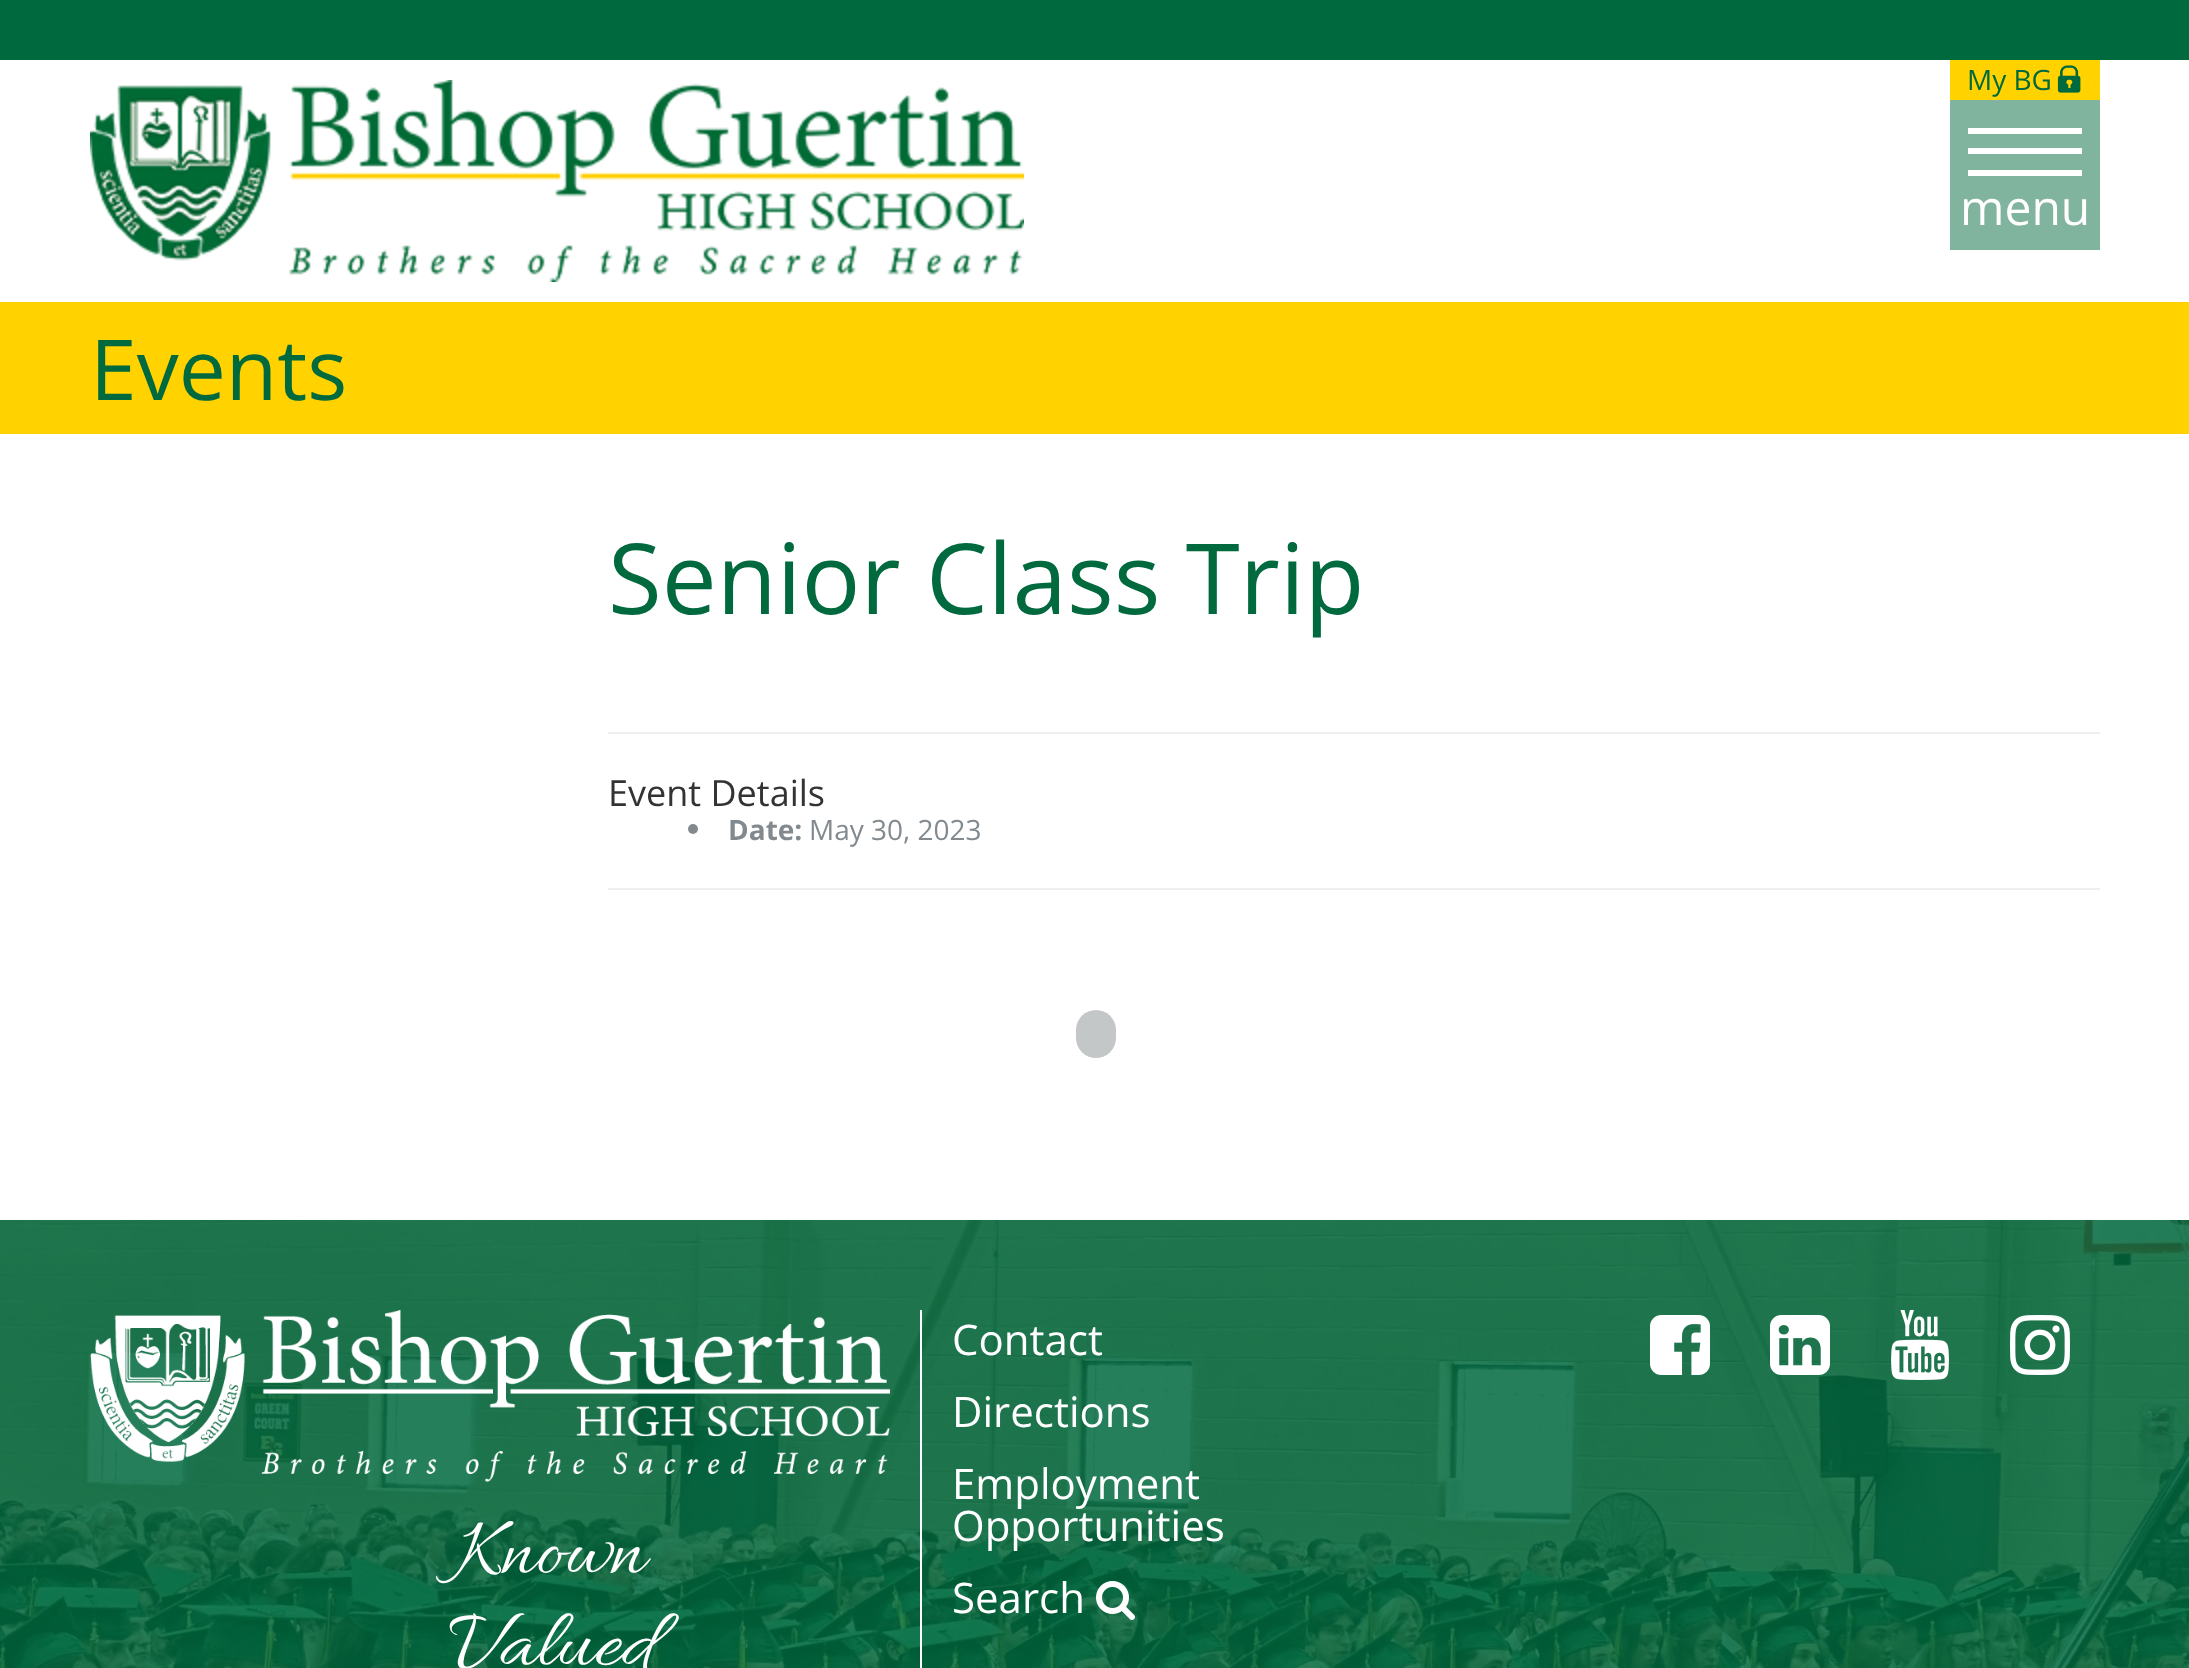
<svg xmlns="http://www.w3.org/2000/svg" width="2189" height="1668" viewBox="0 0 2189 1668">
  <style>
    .t1 { font: 28px Open Sans; fill: #00693e; }
    .t2 { font: 48px Open Sans; fill: #fff; }
    .t3 { font: 84px Open Sans; fill: #00693e; }
    .t4 { font: 98px Open Sans; fill: #00693e; }
    .t5 { font: 36px Open Sans; fill: #333; }
    .t6 { font: bold 28px Open Sans; fill: #828a8f; }
    .t7 { font: 28px Open Sans; fill: #828a8f; }
    .t8 { font: 84px Allura; fill: #fff; }
    .t9 { font: 42px Open Sans; fill: #fff; }
  </style>
  <rect width="100%" height="100%" fill="#fff"/>
  <rect x="0" y="0" width="2189" height="60" fill="#00693e"/>
  <image x="90" y="80" width="934" height="202" href="images/1.png"/>
  <rect x="1950" y="60" width="150" height="40" fill="#ffd200"/>
  <text x="1967" y="90" class="t1">My BG</text>
  <image x="2057" y="65" width="24" height="28" href="images/2.png"/>
  <rect x="1950" y="100" width="150" height="150" fill="#80b49f"/>
  <rect x="1968" y="128" width="114" height="6" fill="#fff"/>
  <rect x="1968" y="148" width="114" height="6" fill="#fff"/>
  <rect x="1968" y="170" width="114" height="6" fill="#fff"/>
  <text x="1960" y="225" class="t2">menu</text>
  <rect x="0" y="302" width="2189" height="132" fill="#ffd200"/>
  <text x="90" y="400" class="t3">Events</text>
  <text x="608" y="614" class="t4">Senior Class Trip</text>
  <rect x="608" y="732" width="1492" height="2" fill="#eee"/>
  <text x="608" y="806" class="t5">Event Details</text>
  <circle cx="693" cy="829" r="5" fill="#828a8f"/>
  <text x="728" y="840" class="t6">Date:</text>
  <text x="809" y="840" class="t7">May 30, 2023</text>
  <rect x="608" y="888" width="1492" height="2" fill="#eee"/>
  <rect x="1076" y="1010" width="40" height="48" rx="20" fill="#c4c7c8"/>
  <image x="0" y="1220" width="2189" height="448" href="images/3.png"/>
  <rect x="920" y="1310" width="2" height="358" fill="#fff"/>
  <image x="90" y="1310" width="800" height="172" href="images/4.png"/>
  <text x="455" y="1572" class="t8">Known</text>
  <text x="448" y="1664" class="t8">Valued</text>
  <text x="952" y="1355" class="t9">Contact</text>
  <text x="952" y="1427" class="t9">Directions</text>
  <text x="952" y="1499" class="t9">Employment</text>
  <text x="952" y="1541" class="t9">Opportunities</text>
  <text x="952" y="1613" class="t9">Search</text>
  <image x="1096" y="1581" width="39" height="39" href="images/5.png"/>
  <image x="1650" y="1315" width="60" height="60" href="images/6.png"/>
  <image x="1770" y="1315" width="60" height="60" href="images/7.png"/>
  <image x="1891" y="1310" width="58" height="70" href="images/8.png"/>
  <image x="2010" y="1315" width="60" height="60" href="images/9.png"/>
</svg>
